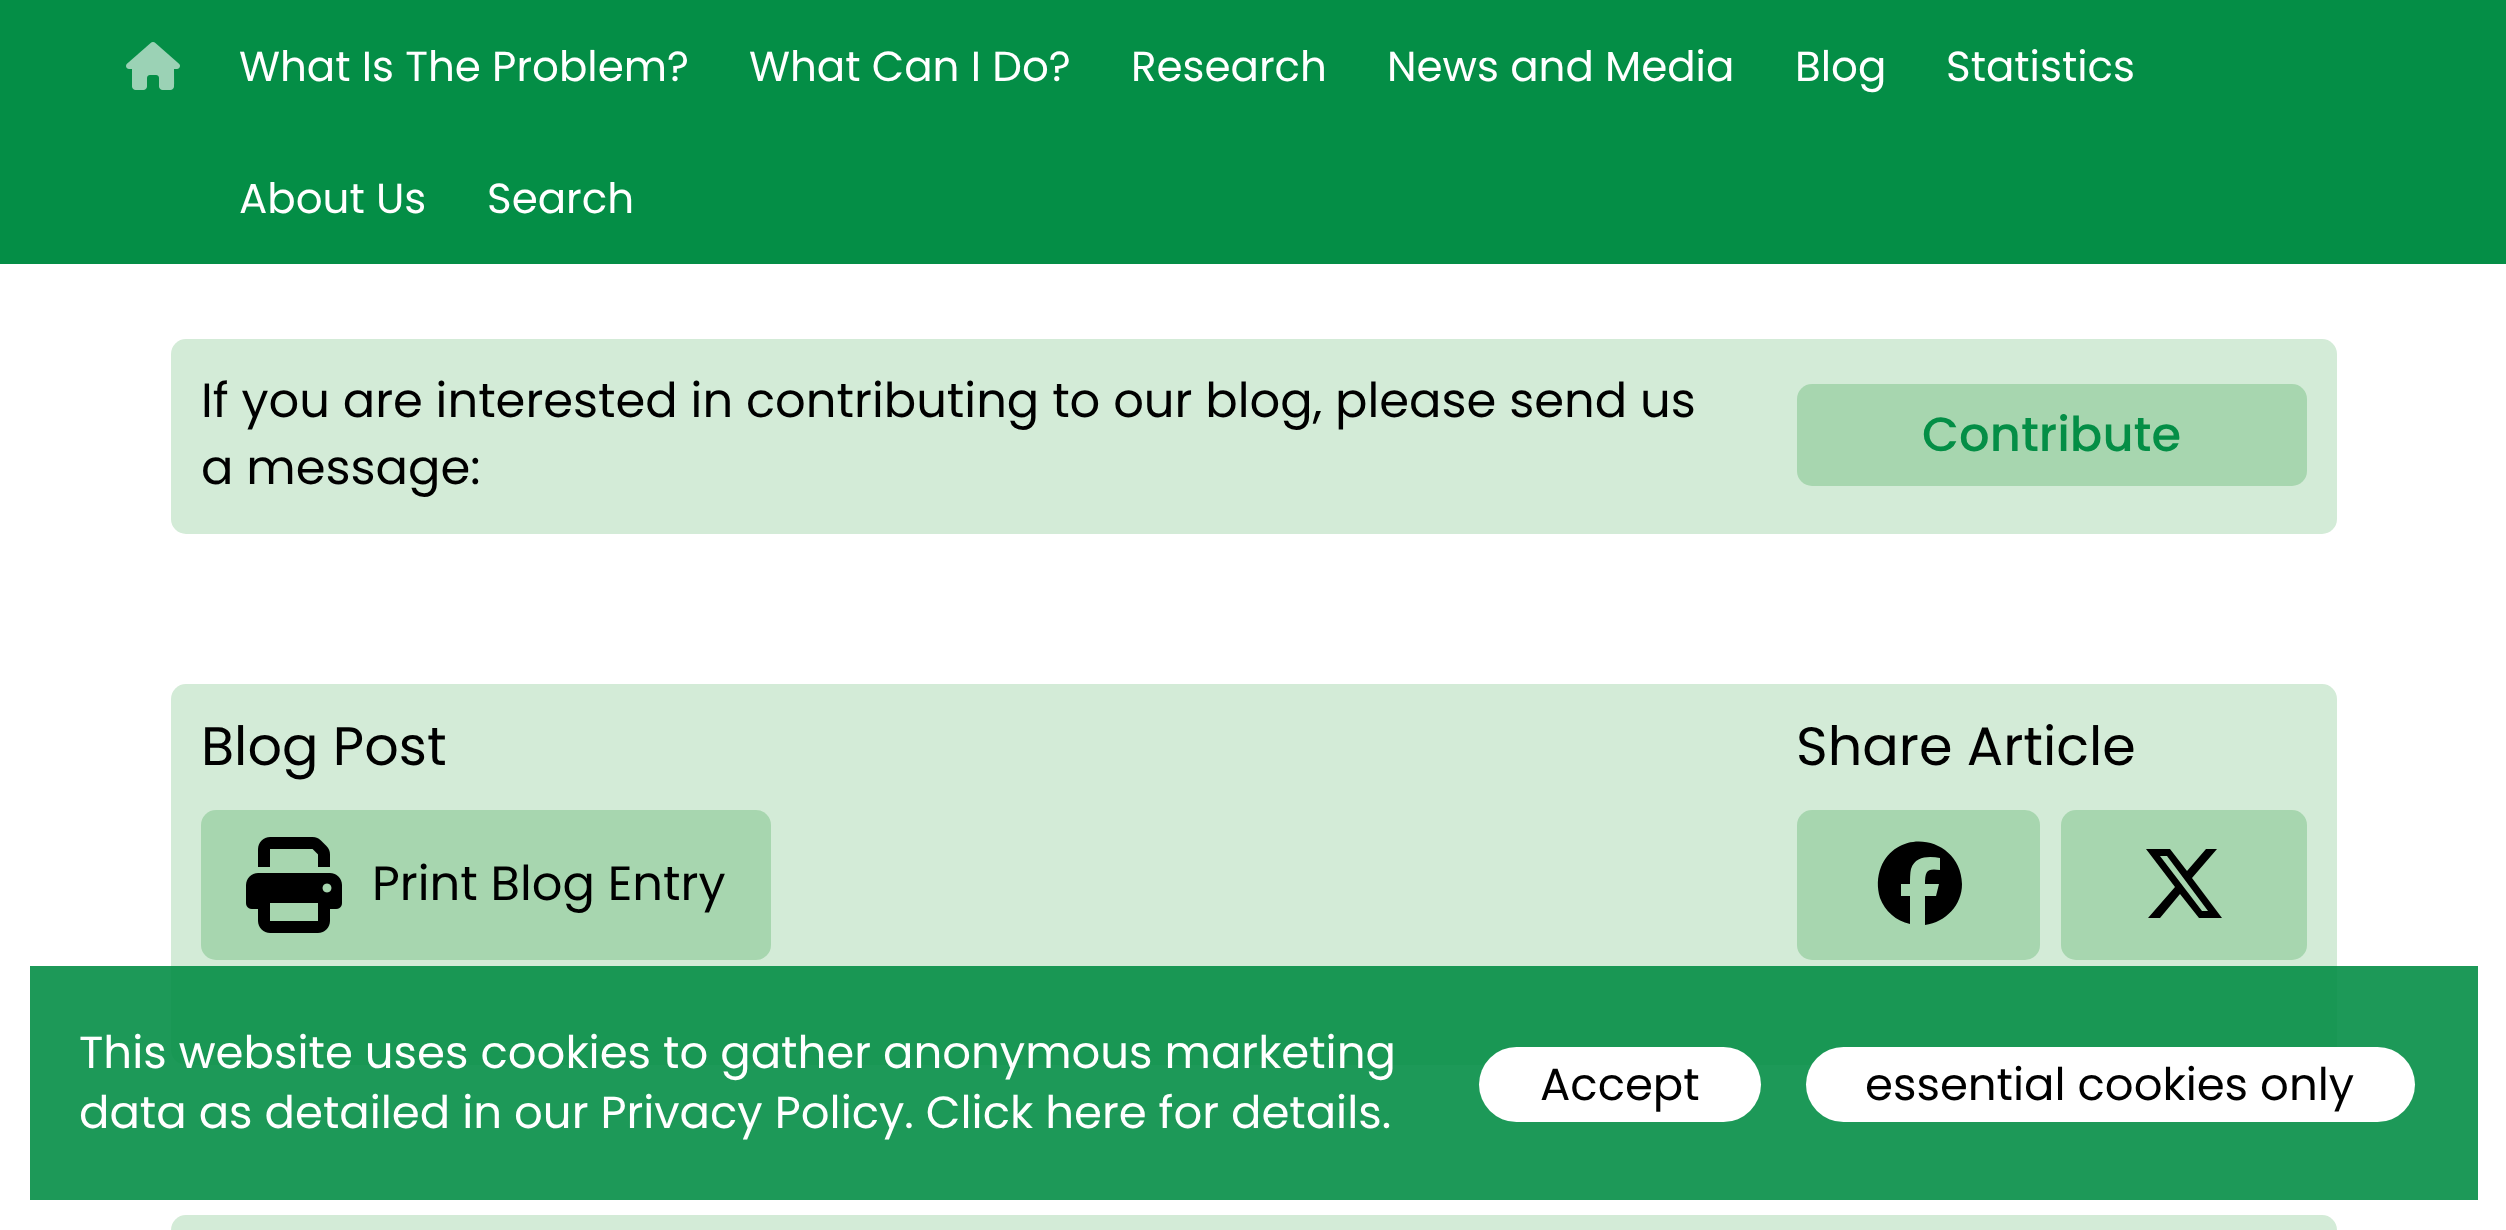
<svg xmlns="http://www.w3.org/2000/svg" width="2506" height="1230" viewBox="0 0 2506 1230">
  <style>
    .t1 { font: 42px Poppins; fill: #fff; }
    .t2 { font: 48px Poppins; fill: #000; }
    .t3 { font: 500 48px Poppins; fill: #048e46; }
    .t4 { font: 54px Poppins; fill: #000; }
    .t5 { font: 45px Poppins; fill: #fff; }
    .t6 { font: 45px Poppins; fill: #000; }
  </style>
  <rect width="100%" height="100%" fill="#fff"/>
  <rect x="0" y="0" width="2506" height="264" fill="#048e46"/>
  <image x="126" y="42" width="54" height="48" href="images/1.png"/>
  <text x="239" y="81" class="t1">What Is The Problem?</text>
  <text x="749" y="81" class="t1">What Can I Do?</text>
  <text x="1131" y="81" class="t1">Research</text>
  <text x="1387" y="81" class="t1">News and Media</text>
  <text x="1795" y="81" class="t1">Blog</text>
  <text x="1946" y="81" class="t1">Statistics</text>
  <text x="239" y="213" class="t1">About Us</text>
  <text x="487" y="213" class="t1">Search</text>
  <rect x="171" y="339" width="2166" height="195" rx="15" fill="#d3ebd7"/>
  <text x="201" y="417" class="t2">If you are interested in contributing to our blog, please send us</text>
  <text x="201" y="484" class="t2">a message:</text>
  <rect x="1797" y="384" width="510" height="102" rx="15" fill="#a7d6af"/>
  <text x="1922" y="451" class="t3">Contribute</text>
  <rect x="171" y="684" width="2166" height="381" rx="15" fill="#d3ebd7"/>
  <text x="201" y="765" class="t4">Blog Post</text>
  <rect x="201" y="810" width="570" height="150" rx="15" fill="#a7d6af"/>
  <image x="246" y="837" width="96" height="96" href="images/2.png"/>
  <text x="372" y="900" class="t2">Print Blog Entry</text>
  <text x="1796" y="765" class="t4">Share Article</text>
  <rect x="1797" y="810" width="243" height="150" rx="15" fill="#a7d6af"/>
  <path d="M1962 884C1961 838 1899 825 1881 867C1877 877 1877 888 1880 898C1885 911 1896 921 1910 924V896H1901V884H1910C1910 879 1910 873 1911 869C1915 856 1929 856 1940 858V870C1927 868 1925 871 1925 884H1939L1936 896H1925V925C1946 922 1962 905 1962 884Z" fill="#000"/>
  <rect x="2061" y="810" width="246" height="150" rx="15" fill="#a7d6af"/>
  <path d="M2206 849H2217H2206H2217L2192 878L2222 918H2199L2180 894L2160 918H2148L2175 887L2146 849H2170L2187 871ZM2202 911H2208H2202H2208L2167 856H2160Z" fill="#000"/>
  <rect x="171" y="1215" width="2166" height="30" rx="15" fill="#d3ebd7"/>
  <rect x="30" y="966" width="2448" height="234" fill="#048e46e6"/>
  <text x="79" y="1068" class="t5">This website uses cookies to gather anonymous marketing</text>
  <text x="79" y="1128" class="t5">data as detailed in our Privacy Policy. Click here for details.</text>
  <rect x="1479" y="1047" width="282" height="75" rx="37.5" fill="#fff"/>
  <text x="1540" y="1100" class="t6">Accept</text>
  <rect x="1806" y="1047" width="609" height="75" rx="37.5" fill="#fff"/>
  <text x="1865" y="1100" class="t6">essential cookies only</text>
</svg>
